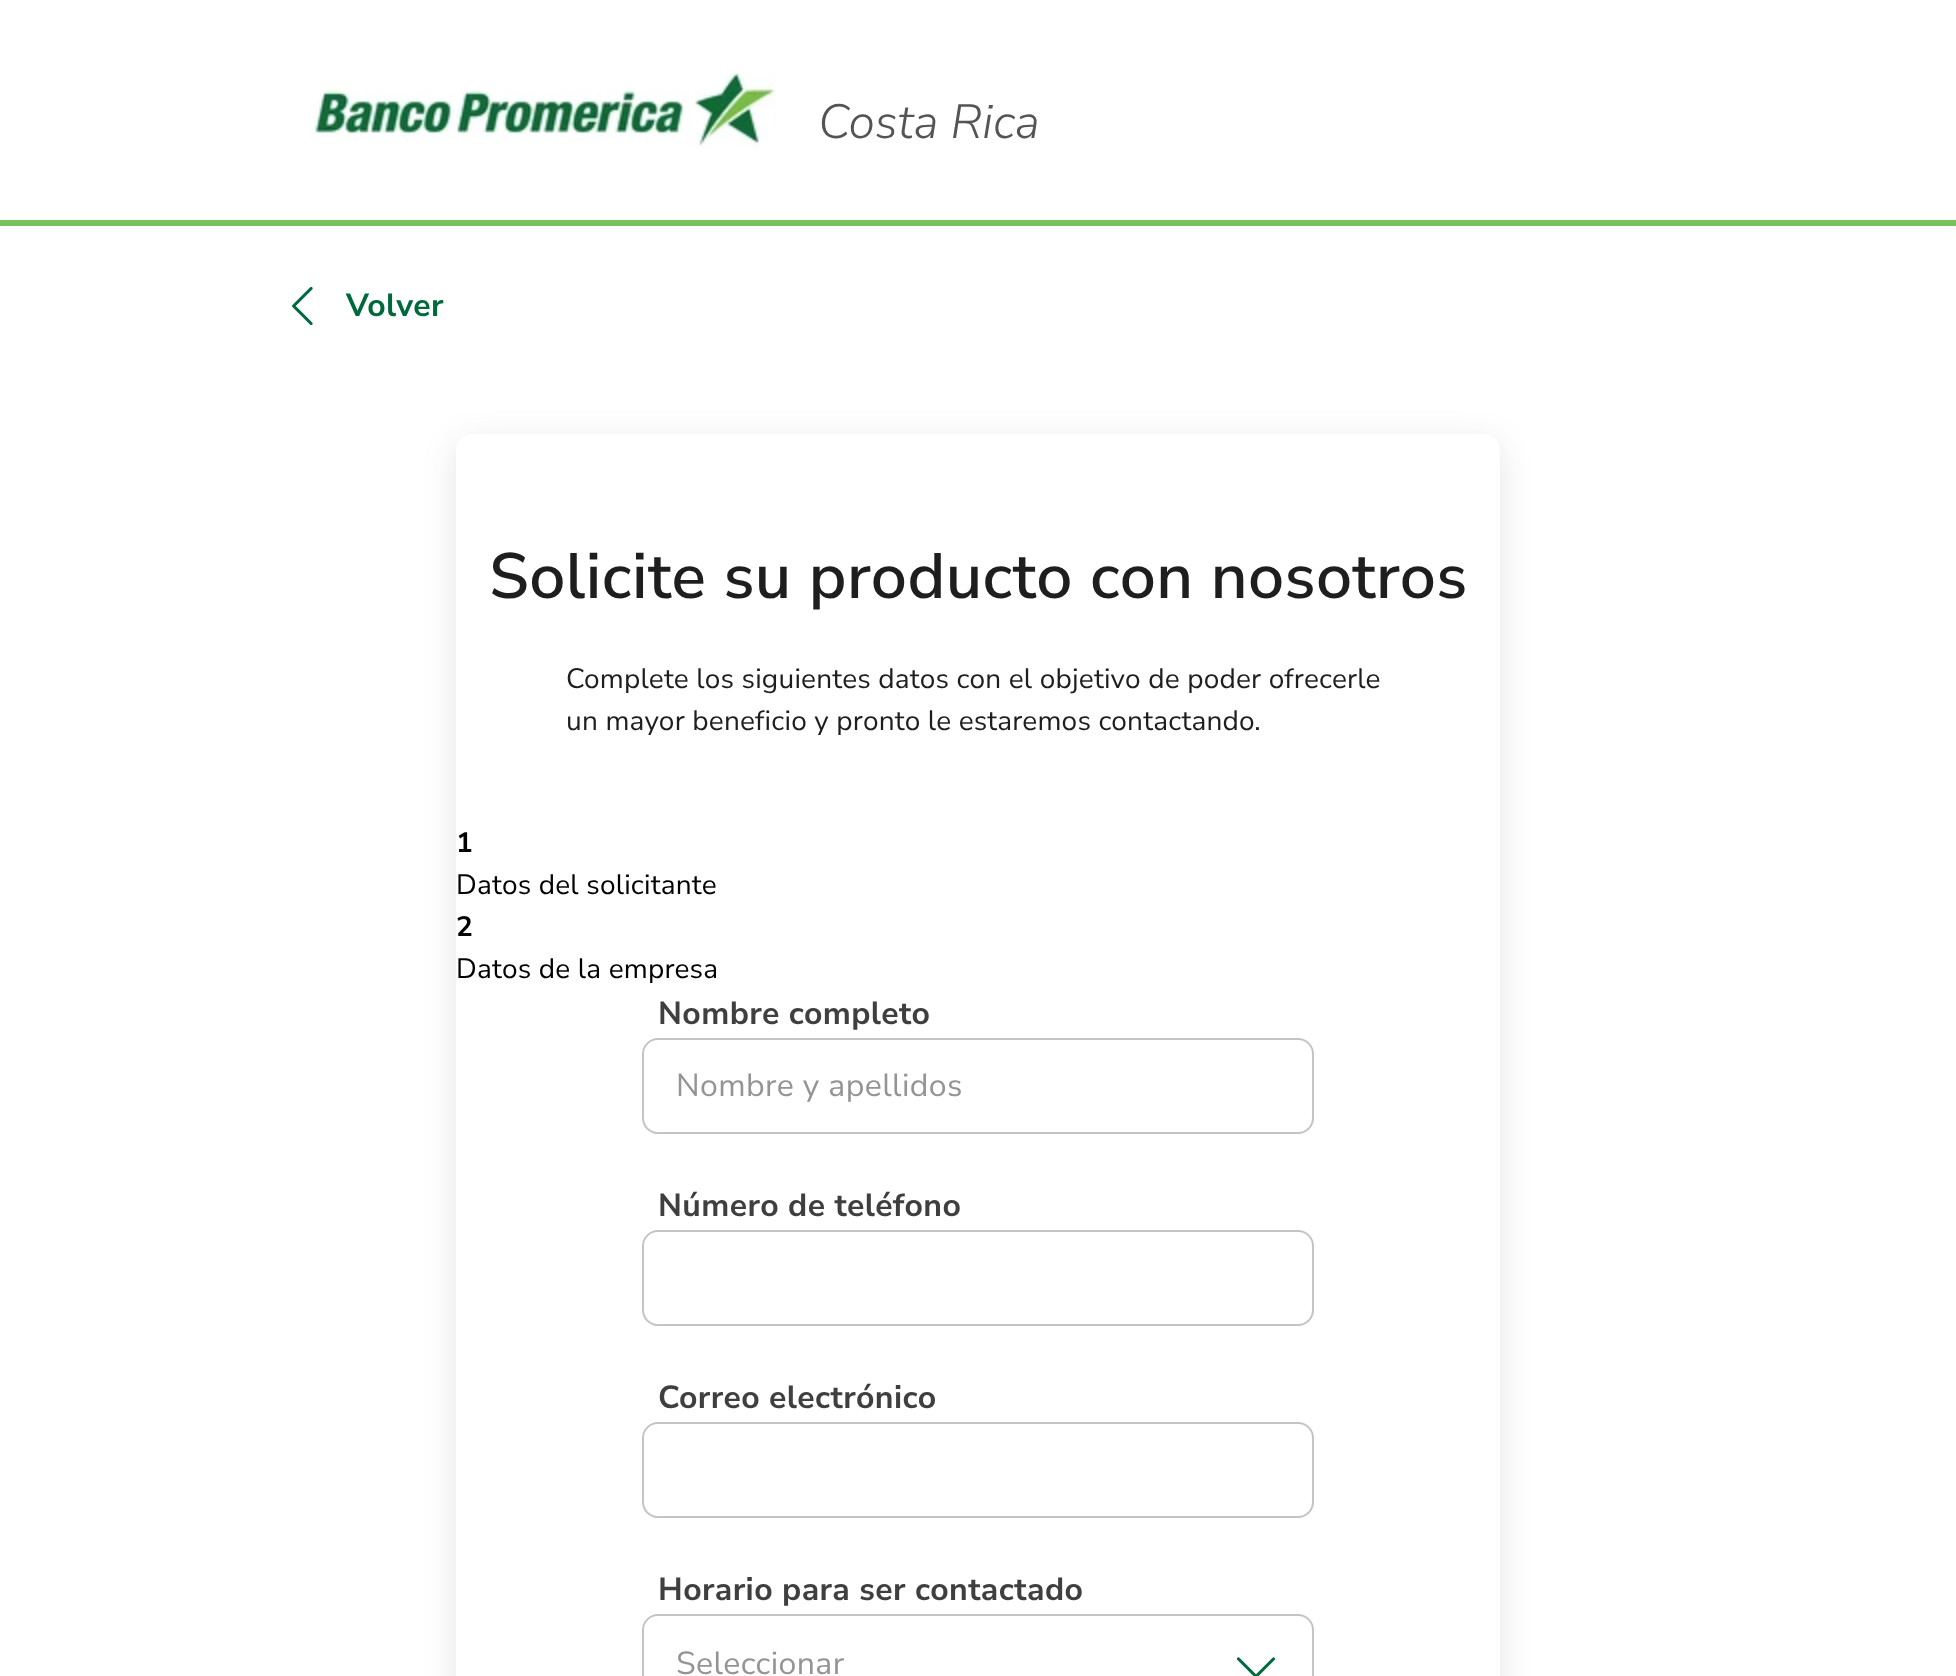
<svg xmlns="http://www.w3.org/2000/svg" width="1956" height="1676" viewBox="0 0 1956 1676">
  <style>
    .t1 { font: italic 300 48px Nunito Sans; fill: #545454; }
    .t2 { font: bold 32px Nunito Sans; letter-spacing: 0.4px; fill: #00693c; }
    .t3 { font: 600 64px Nunito Sans; letter-spacing: 0.4px; fill: #1e1e1e; }
    .t4 { font: 28px Nunito Sans; letter-spacing: 0.2px; fill: #1e1e1e; }
    .t5 { font: bold 28px Nunito Sans; letter-spacing: 0.2px; fill: #000; }
    .t6 { font: 28px Nunito Sans; letter-spacing: 0.2px; fill: #000; }
    .t7 { font: bold 32px Nunito Sans; letter-spacing: 0.4px; fill: #3f3f3f; }
    .t8 { font: 32px Nunito Sans; letter-spacing: 0.4px; fill: #949494; }
  </style>
  <rect width="100%" height="100%" fill="#fff"/>
  <rect x="0" y="220" width="1956" height="6" fill="#79c15d"/>
  <image x="313" y="73" width="463" height="75" href="images/1.png"/>
  <text x="818" y="138" class="t1">Costa Rica</text>
  <image x="292" y="286" width="21" height="40" href="images/2.png"/>
  <text x="346" y="316" class="t2">Volver</text>
  <rect x="456" y="442" width="1044" height="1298" rx="16" fill="#1e1e1e1f" filter="blur(16px)"/>
  <rect x="456" y="434" width="1044" height="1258" rx="16" fill="#fff"/>
  <text x="489" y="598" class="t3">Solicite su producto con nosotros</text>
  <text x="566" y="688" class="t4">Complete los siguientes datos con el objetivo de poder ofrecerle</text>
  <text x="566" y="730" class="t4">un mayor beneficio y pronto le estaremos contactando.</text>
  <text x="456" y="852" class="t5">1</text>
  <text x="456" y="894" class="t6">Datos del solicitante</text>
  <text x="456" y="936" class="t5">2</text>
  <text x="456" y="978" class="t6">Datos de la empresa</text>
  <text x="658" y="1024" class="t7">Nombre completo</text>
  <rect x="643" y="1039" width="670" height="94" rx="15" fill="none" stroke="#c4c4c4" stroke-width="2"/>
  <text x="676" y="1096" class="t8">Nombre y apellidos</text>
  <text x="658" y="1216" class="t7">Número de teléfono</text>
  <rect x="643" y="1231" width="670" height="94" rx="15" fill="none" stroke="#c4c4c4" stroke-width="2"/>
  <text x="658" y="1408" class="t7">Correo electrónico</text>
  <rect x="643" y="1423" width="670" height="94" rx="15" fill="none" stroke="#c4c4c4" stroke-width="2"/>
  <text x="658" y="1600" class="t7">Horario para ser contactado</text>
  <rect x="643" y="1615" width="670" height="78" rx="15" fill="none" stroke="#c4c4c4" stroke-width="2"/>
  <text x="676" y="1674" class="t8">Seleccionar</text>
  <image x="1236" y="1657" width="40" height="19" href="images/3.png"/>
</svg>
